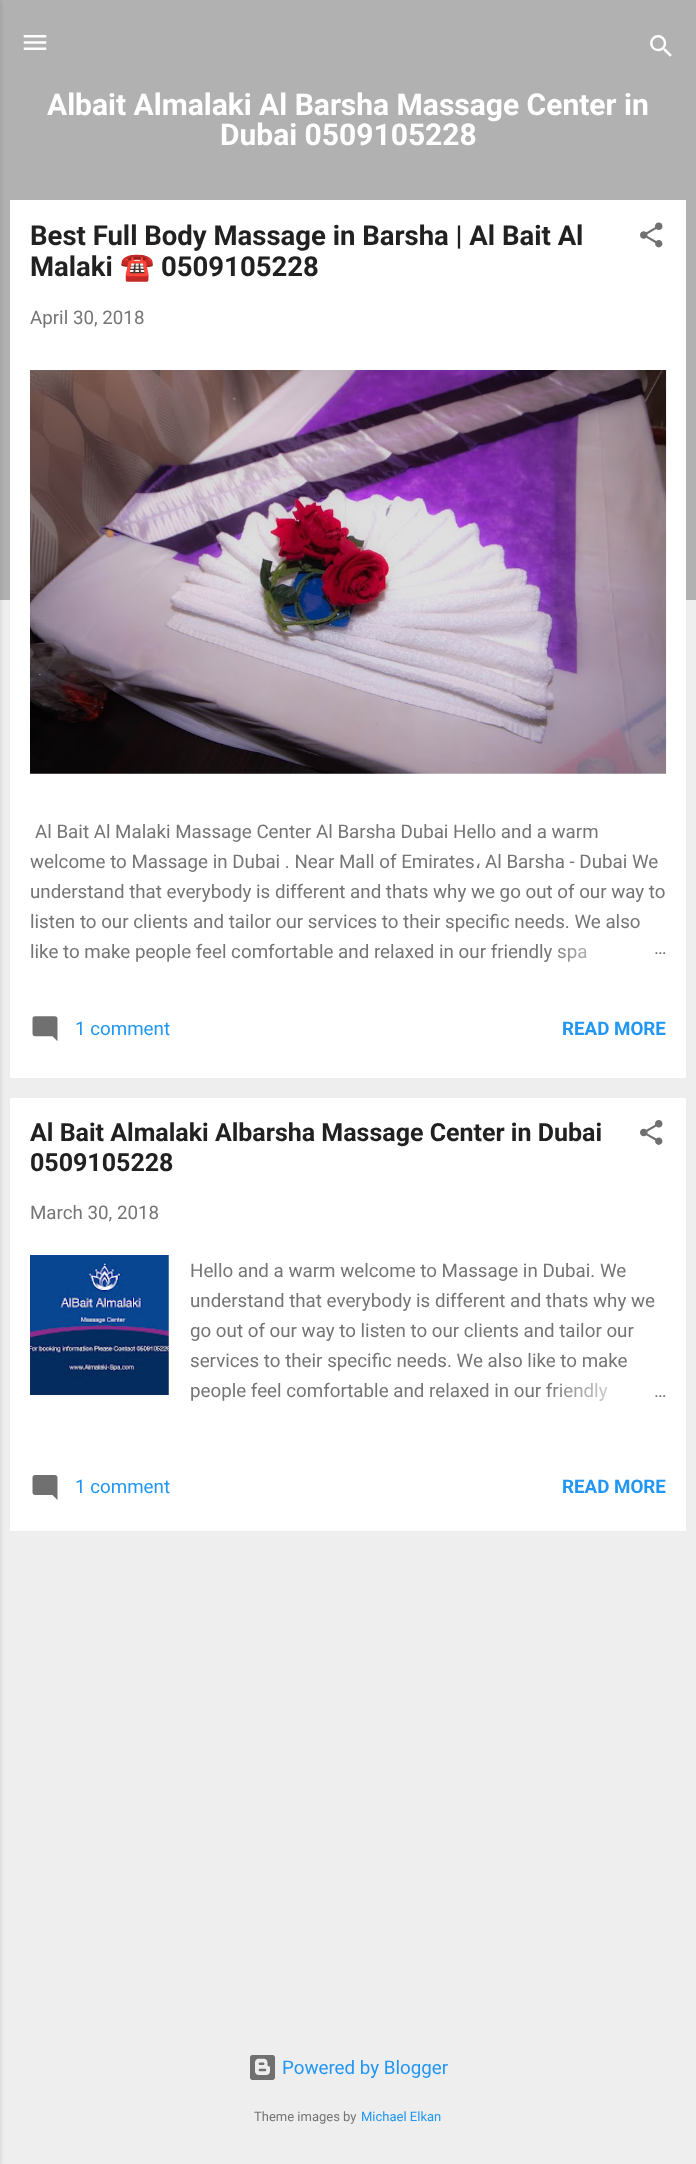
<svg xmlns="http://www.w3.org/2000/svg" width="696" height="2164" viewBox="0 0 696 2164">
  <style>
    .t1 { font: bold 30px Roboto; fill: #fff; }
    .t2 { font: bold 27.5px Roboto; fill: #212121; }
    .t3 { font: bold 27.5px Noto Color Emoji; fill: #212121; }
    .t4 { font: 18.75px Roboto; fill: #757575; }
    .t5 { font: 18.75px DejaVu Sans; fill: #757575; }
    .t6 { font: 18.75px Roboto; fill: #2196f3; }
    .t7 { font: bold 18.75px Roboto; fill: #2196f3; }
    .t8 { font: bold 25px Roboto; fill: #212121; }
    .t9 { font: 13px Roboto; fill: #757575; }
    .t10 { font: 13px Roboto; fill: #2196f3; }
  </style>
  <defs>
    <linearGradient id="g1" gradientUnits="userSpaceOnUse" x1="666" y1="951" x2="546" y2="951"><stop offset="0" stop-color="#fff"/><stop offset="0.2" stop-color="#fff"/><stop offset="1" stop-color="#fff" stop-opacity="0"/></linearGradient>
    <linearGradient id="g2" gradientUnits="userSpaceOnUse" x1="666" y1="1390" x2="546" y2="1390"><stop offset="0" stop-color="#fff"/><stop offset="0.2" stop-color="#fff"/><stop offset="1" stop-color="#fff" stop-opacity="0"/></linearGradient>
  </defs>
  <rect width="100%" height="100%" fill="#eee"/>
  <rect x="0" y="0" width="696" height="600" fill="#b1b1b1"/>
  <rect x="-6" y="1" width="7" height="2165" fill="#0000001a" filter="blur(2px)"/>
  <image x="23" y="35" width="24" height="15" href="images/1.png"/>
  <image x="650" y="35" width="22" height="22" href="images/2.png"/>
  <text x="47" y="115" class="t1">Albait Almalaki Al Barsha Massage Center in</text>
  <text x="220" y="145" class="t1">Dubai 0509105228</text>
  <rect x="10" y="200" width="676" height="878" fill="#fff"/>
  <text x="30" y="245" class="t2">Best Full Body Massage in Barsha | Al Bait Al</text>
  <text x="30" y="276" class="t2">Malaki</text>
  <text x="120" y="276" class="t3">☎️</text>
  <text x="161" y="276" class="t2">0509105228</text>
  <image x="640" y="222" width="23" height="26" href="images/3.png"/>
  <text x="30" y="324" class="t4">April 30, 2018</text>
  <image x="30" y="370" width="637" height="404" href="images/4.png"/>
  <text x="35" y="838" class="t4">Al Bait Al Malaki Massage Center Al Barsha Dubai Hello and a warm</text>
  <text x="30" y="868" class="t4">welcome to Massage in Dubai . Near Mall of Emirates</text>
  <text x="475" y="868" class="t5">،</text>
  <text x="485" y="868" class="t4">Al Barsha - Dubai We</text>
  <text x="30" y="898" class="t4">understand that everybody is different and thats why we go out of our way to</text>
  <text x="30" y="928" class="t4">listen to our clients and tailor our services to their specific needs. We also</text>
  <text x="30" y="958" class="t4">like to make people feel comfortable and relaxed in our friendly spa</text>
  <rect x="548" y="947" width="39" height="15" fill="url(#g1)"/>
  <text x="654" y="954" class="t4">…</text>
  <image x="32" y="1016" width="26" height="25" href="images/5.png"/>
  <text x="75" y="1035" class="t6">1 comment</text>
  <text x="562" y="1035" class="t7">READ MORE</text>
  <rect x="10" y="1098" width="676" height="433" fill="#fff"/>
  <text x="30" y="1141" class="t8">Al Bait Almalaki Albarsha Massage Center in Dubai</text>
  <text x="30" y="1171" class="t8">0509105228</text>
  <image x="640" y="1120" width="23" height="25" href="images/6.png"/>
  <text x="30" y="1219" class="t4">March 30, 2018</text>
  <image x="30" y="1255" width="139" height="140" href="images/7.png"/>
  <text x="190" y="1277" class="t4">Hello and a warm welcome to Massage in Dubai. We</text>
  <text x="190" y="1307" class="t4">understand that everybody is different and thats why we</text>
  <text x="190" y="1337" class="t4">go out of our way to listen to our clients and tailor our</text>
  <text x="190" y="1367" class="t4">services to their specific needs. We also like to make</text>
  <text x="190" y="1397" class="t4">people feel comfortable and relaxed in our friendly</text>
  <rect x="548" y="1382" width="60" height="19" fill="url(#g2)"/>
  <text x="654" y="1397" class="t4">…</text>
  <image x="32" y="1475" width="26" height="25" href="images/8.png"/>
  <text x="75" y="1493" class="t6">1 comment</text>
  <text x="562" y="1493" class="t7">READ MORE</text>
  <image x="250" y="2055" width="25" height="25" href="images/9.png"/>
  <text x="282" y="2074" class="t6">Powered by Blogger</text>
  <text x="254" y="2121" class="t9">Theme images by</text>
  <text x="361" y="2121" class="t10">Michael Elkan</text>
</svg>
